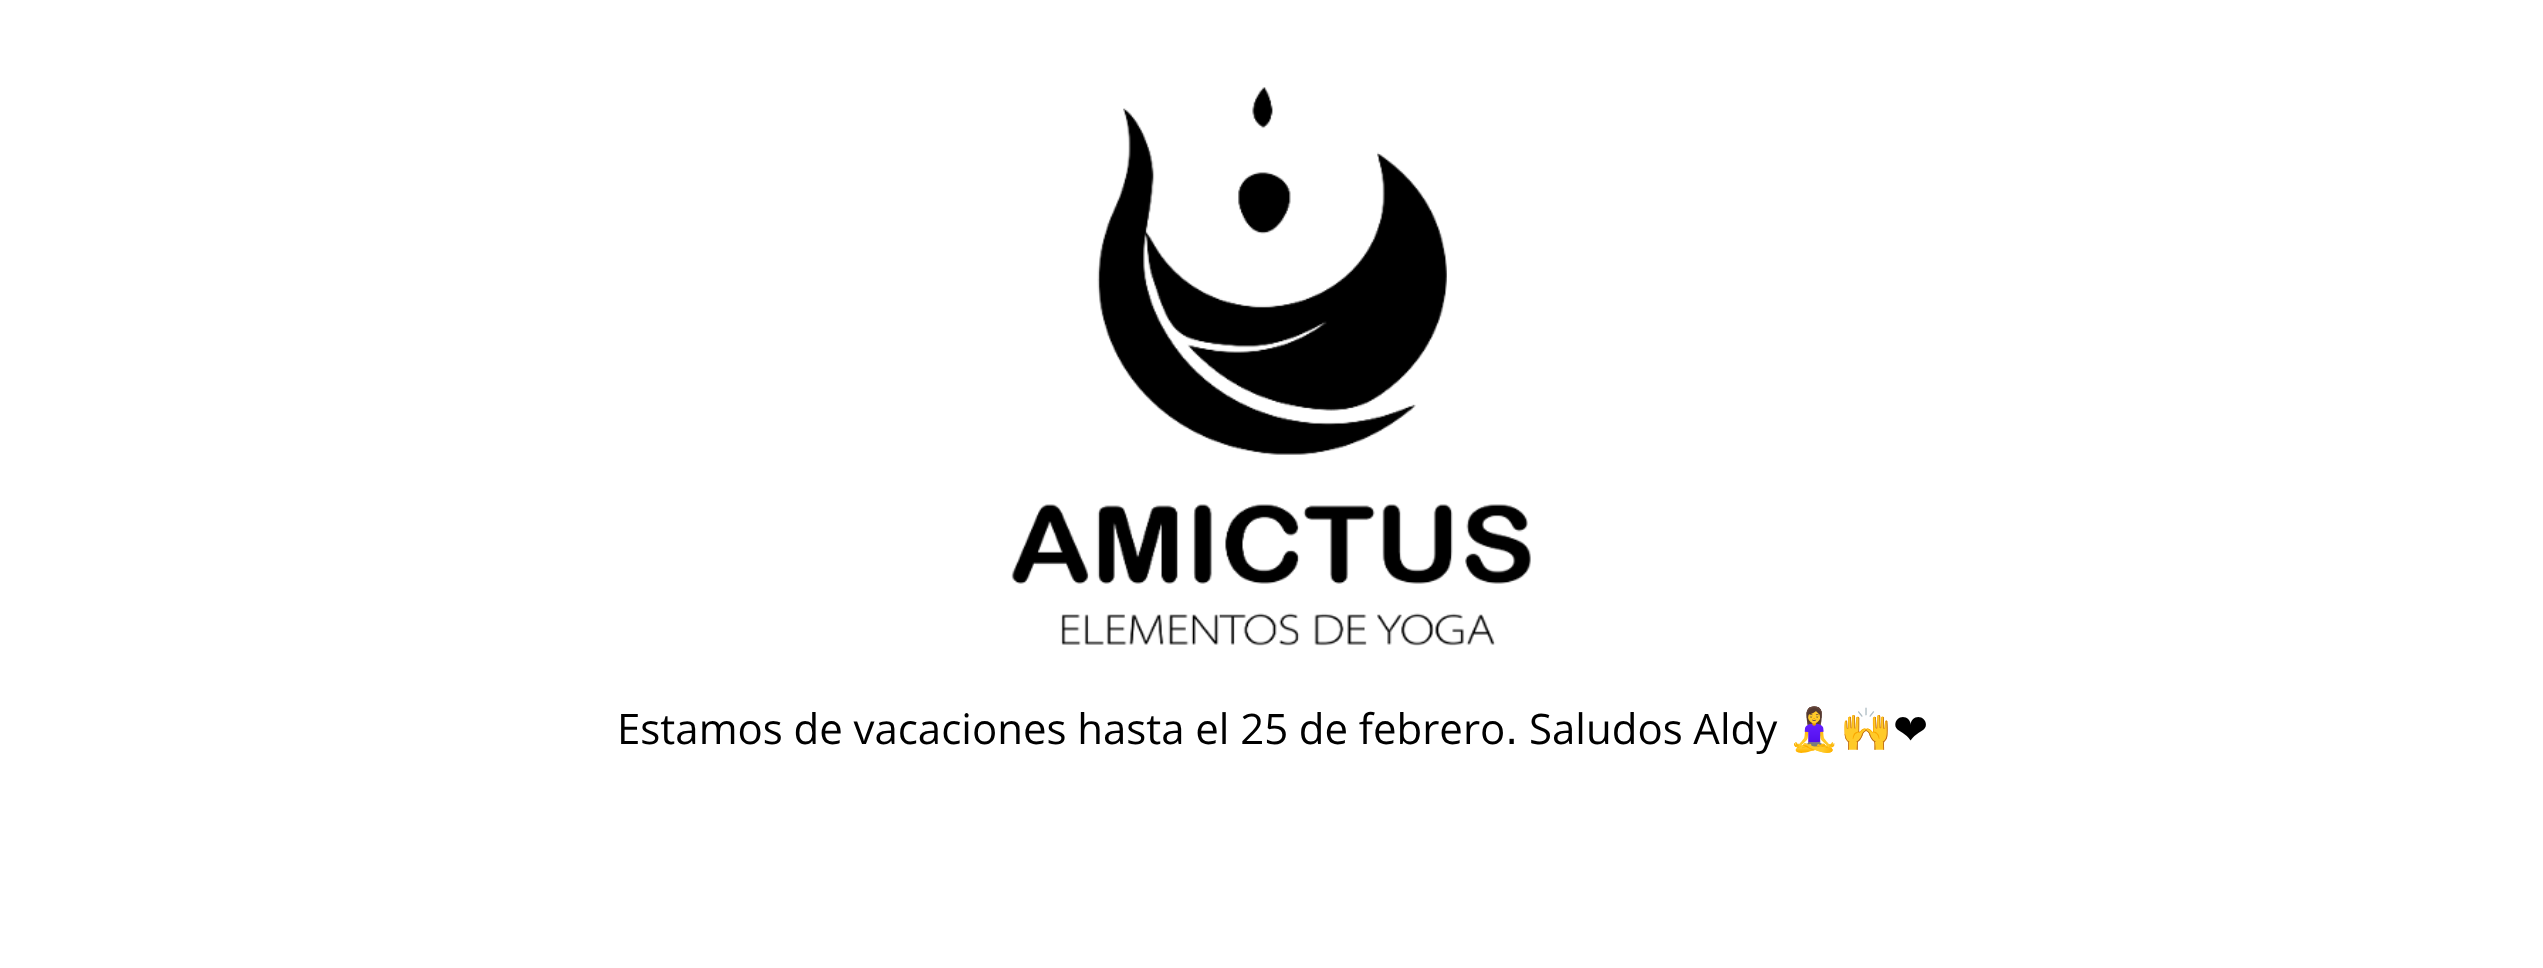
<svg xmlns="http://www.w3.org/2000/svg" width="2543" height="968" viewBox="0 0 2543 968">
  <style>
    .t1 { font: 42px Open Sans; fill: #000; }
    .t2 { font: 42px DejaVu Sans; fill: #000; }
    .t3 { font: 42px Noto Color Emoji; fill: #000; }
  </style>
  <rect width="100%" height="100%" fill="#fff"/>
  <image x="1011" y="87" width="520" height="559" href="images/1.png"/>
  <text x="617" y="744" word-spacing="-0.25" class="t1">Estamos de vacaciones hasta el 25 de febrero</text>
  <text x="1505" y="744" class="t2">.</text>
  <text x="1529" y="744" word-spacing="-0.25" class="t1">Saludos Aldy</text>
  <text x="1788" y="744" class="t3">🧘‍♀️🙌</text>
  <text x="1893" y="744" class="t2">❤</text>
</svg>
